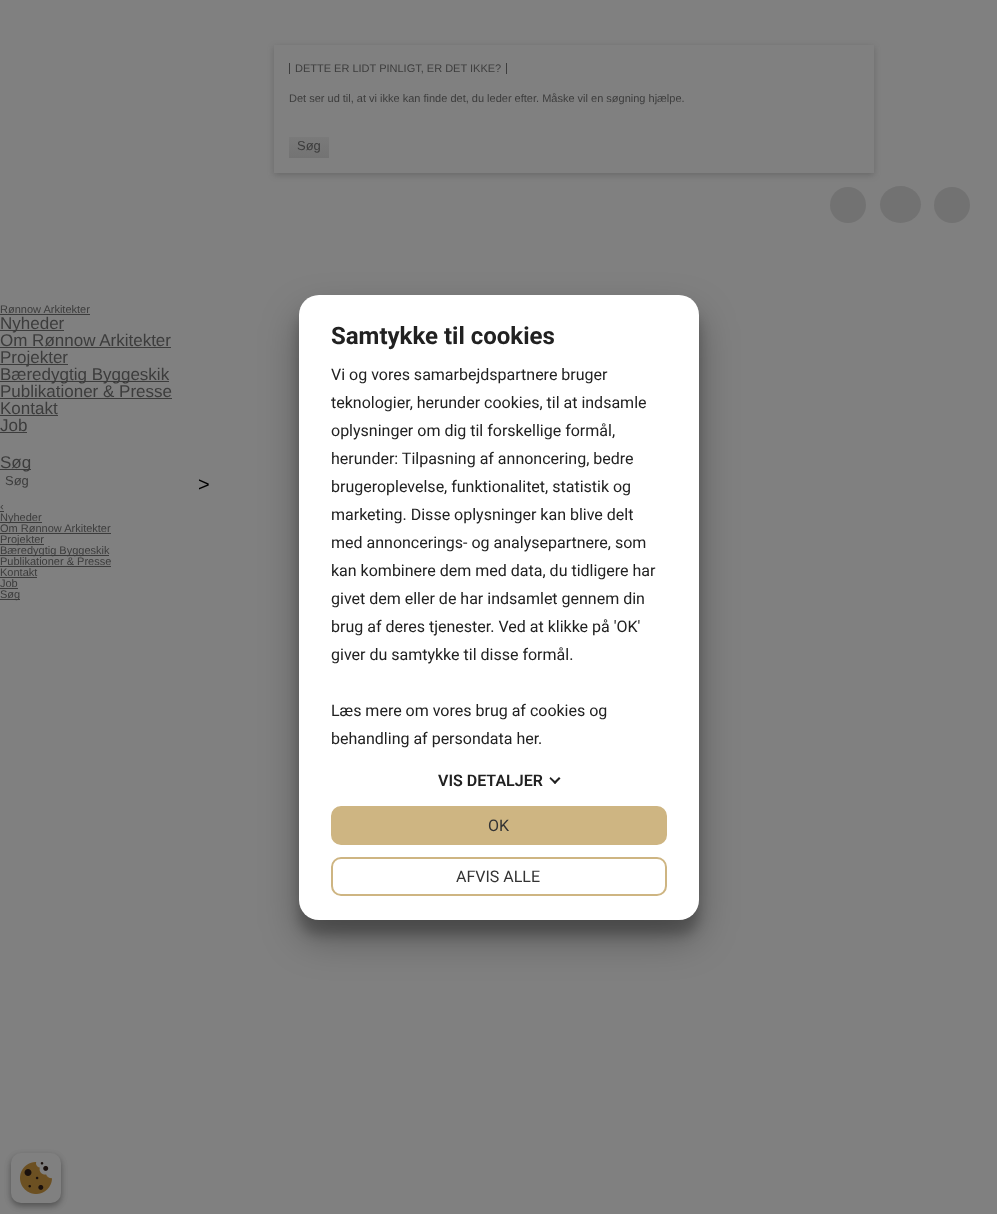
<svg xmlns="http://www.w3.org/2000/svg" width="997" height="1214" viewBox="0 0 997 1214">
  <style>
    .t1 { font: 11px Liberation Sans; fill: #3c3c3c; }
    .t2 { font: 13px Liberation Sans; fill: #3c3c3c; }
    .t3 { font: 17px Liberation Sans; fill: #3c3c3c; }
    .t4 { font: 20px Liberation Sans; fill: #000; }
    .t5 { font: bold 24px Roboto; fill: #212121; }
    .t6 { font: 16px Roboto; fill: #212121; }
    .t7 { font: 600 16px Roboto; fill: #212121; }
    .t8 { font: 16px Roboto; fill: #333; }
  </style>
  <defs>
    <clipPath id="clip1"><path d="M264 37H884V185H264ZM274 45H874V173H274Z" clip-rule="evenodd"/></clipPath>
    <linearGradient id="g1" gradientUnits="userSpaceOnUse" x1="309" y1="137" x2="309" y2="158"><stop offset="0" stop-color="#7a7a7a"/><stop offset="1" stop-color="#737373"/></linearGradient>
  </defs>
  <rect width="100%" height="100%" fill="#808080"/>
  <g clip-path="url(#clip1)">
    <rect x="274" y="47" width="600" height="128" fill="#3232324d" filter="blur(3px)"/>
  </g>
  <rect x="506" y="63" width="1" height="11" fill="#3c3c3c"/>
  <rect x="289" y="63" width="1" height="11" fill="#3c3c3c"/>
  <text x="295" y="72" class="t1">DETTE ER LIDT PINLIGT, ER DET IKKE?</text>
  <text x="289" y="102" class="t1">Det ser ud til, at vi ikke kan finde det, du leder efter. Måske vil en søgning hjælpe.</text>
  <rect x="289" y="137" width="40" height="21" fill="url(#g1)"/>
  <text x="297" y="150" class="t2">Søg</text>
  <circle cx="848" cy="205" r="18" fill="#727272"/>
  <ellipse cx="900.5" cy="204.5" rx="20.5" ry="18.5" fill="#727272"/>
  <circle cx="952" cy="205" r="18" fill="#727272"/>
  <text x="0" y="313" class="t1">Rønnow Arkitekter</text>
  <rect x="0" y="314" width="90" height="1" fill="#3c3c3c"/>
  <rect x="0" y="330" width="64" height="1" fill="#3c3c3c"/>
  <text x="0" y="329" class="t3">Nyheder</text>
  <text x="0" y="346" class="t3">Om Rønnow Arkitekter</text>
  <rect x="0" y="347" width="171" height="1" fill="#3c3c3c"/>
  <rect x="0" y="364" width="68" height="1" fill="#3c3c3c"/>
  <text x="0" y="363" class="t3">Projekter</text>
  <rect x="0" y="381" width="169" height="1" fill="#3c3c3c"/>
  <text x="0" y="380" class="t3">Bæredygtig Byggeskik</text>
  <text x="0" y="397" class="t3">Publikationer &amp; Presse</text>
  <rect x="0" y="398" width="172" height="1" fill="#3c3c3c"/>
  <text x="0" y="414" class="t3">Kontakt</text>
  <rect x="0" y="415" width="58" height="1" fill="#3c3c3c"/>
  <text x="0" y="431" class="t3">Job</text>
  <rect x="0" y="432" width="27" height="1" fill="#3c3c3c"/>
  <rect x="0" y="469" width="31" height="1" fill="#3c3c3c"/>
  <text x="0" y="468" class="t3">Søg</text>
  <text x="5" y="485" class="t2">Søg</text>
  <text x="198" y="491" class="t4">&gt;</text>
  <rect x="299" y="310" width="400" height="625" rx="20" fill="#00000038" filter="blur(6px)"/>
  <rect x="299" y="314" width="400" height="625" rx="20" fill="#0000004d" filter="blur(19px)"/>
  <rect x="299" y="295" width="400" height="625" rx="20" fill="#fff"/>
  <text x="331" y="344" class="t5">Samtykke til cookies</text>
  <text x="331" y="380" class="t6">Vi og vores samarbejdspartnere bruger</text>
  <text x="331" y="408" class="t6">teknologier, herunder cookies, til at indsamle</text>
  <text x="331" y="436" class="t6">oplysninger om dig til forskellige formål,</text>
  <text x="331" y="464" class="t6">herunder: Tilpasning af annoncering, bedre</text>
  <text x="331" y="492" class="t6">brugeroplevelse, funktionalitet, statistik og</text>
  <text x="331" y="520" class="t6">marketing. Disse oplysninger kan blive delt</text>
  <text x="331" y="548" class="t6">med annoncerings- og analysepartnere, som</text>
  <text x="331" y="576" class="t6">kan kombinere dem med data, du tidligere har</text>
  <text x="331" y="604" class="t6">givet dem eller de har indsamlet gennem din</text>
  <text x="331" y="632" class="t6">brug af deres tjenester. Ved at klikke på 'OK'</text>
  <text x="331" y="660" class="t6">giver du samtykke til disse formål.</text>
  <text x="331" y="716" class="t6">Læs mere om vores brug af cookies og</text>
  <text x="331" y="744" class="t6">behandling af persondata her</text>
  <text x="538" y="744" class="t6">.</text>
  <text x="438" y="786" class="t7">VIS DETALJER</text>
  <path d="M559 777L560.5 778.5L555 784L553.5 782.5Z" fill="#212121"/>
  <path d="M550.5 777L556.5 782.5L555 784L549.5 778.5Z" fill="#212121"/>
  <rect x="332" y="807" width="334" height="37" rx="9" fill="#ceb582" stroke="#ceb582" stroke-width="2"/>
  <text x="488" y="831" class="t8">OK</text>
  <rect x="332" y="858" width="334" height="37" rx="9" fill="none" stroke="#ceb582" stroke-width="2"/>
  <text x="456" y="882" class="t8">AFVIS ALLE</text>
  <text x="0" y="510" class="t1">‹</text>
  <rect x="0" y="511" width="4" height="1" fill="#3c3c3c"/>
  <rect x="0" y="522" width="42" height="1" fill="#3c3c3c"/>
  <text x="0" y="521" class="t1">Nyheder</text>
  <text x="0" y="532" class="t1">Om Rønnow Arkitekter</text>
  <rect x="0" y="533" width="111" height="1" fill="#3c3c3c"/>
  <rect x="0" y="544" width="44" height="1" fill="#3c3c3c"/>
  <text x="0" y="543" class="t1">Projekter</text>
  <rect x="0" y="555" width="109" height="1" fill="#3c3c3c"/>
  <text x="0" y="554" class="t1">Bæredygtig Byggeskik</text>
  <text x="0" y="565" class="t1">Publikationer &amp; Presse</text>
  <rect x="0" y="566" width="111" height="1" fill="#3c3c3c"/>
  <text x="0" y="576" class="t1">Kontakt</text>
  <rect x="0" y="577" width="37" height="1" fill="#3c3c3c"/>
  <text x="0" y="587" class="t1">Job</text>
  <rect x="0" y="588" width="18" height="1" fill="#3c3c3c"/>
  <rect x="0" y="599" width="20" height="1" fill="#3c3c3c"/>
  <text x="0" y="598" class="t1">Søg</text>
  <rect x="11" y="1156" width="50" height="50" rx="10" fill="#0000003b" filter="blur(3px)"/>
  <rect x="11" y="1156" width="50" height="50" rx="10" fill="#00000029" filter="blur(3px)"/>
  <rect x="11" y="1153" width="50" height="50" rx="10" fill="#808080"/>
  <image x="20" y="1162" width="32" height="32" href="images/1.png"/>
</svg>
